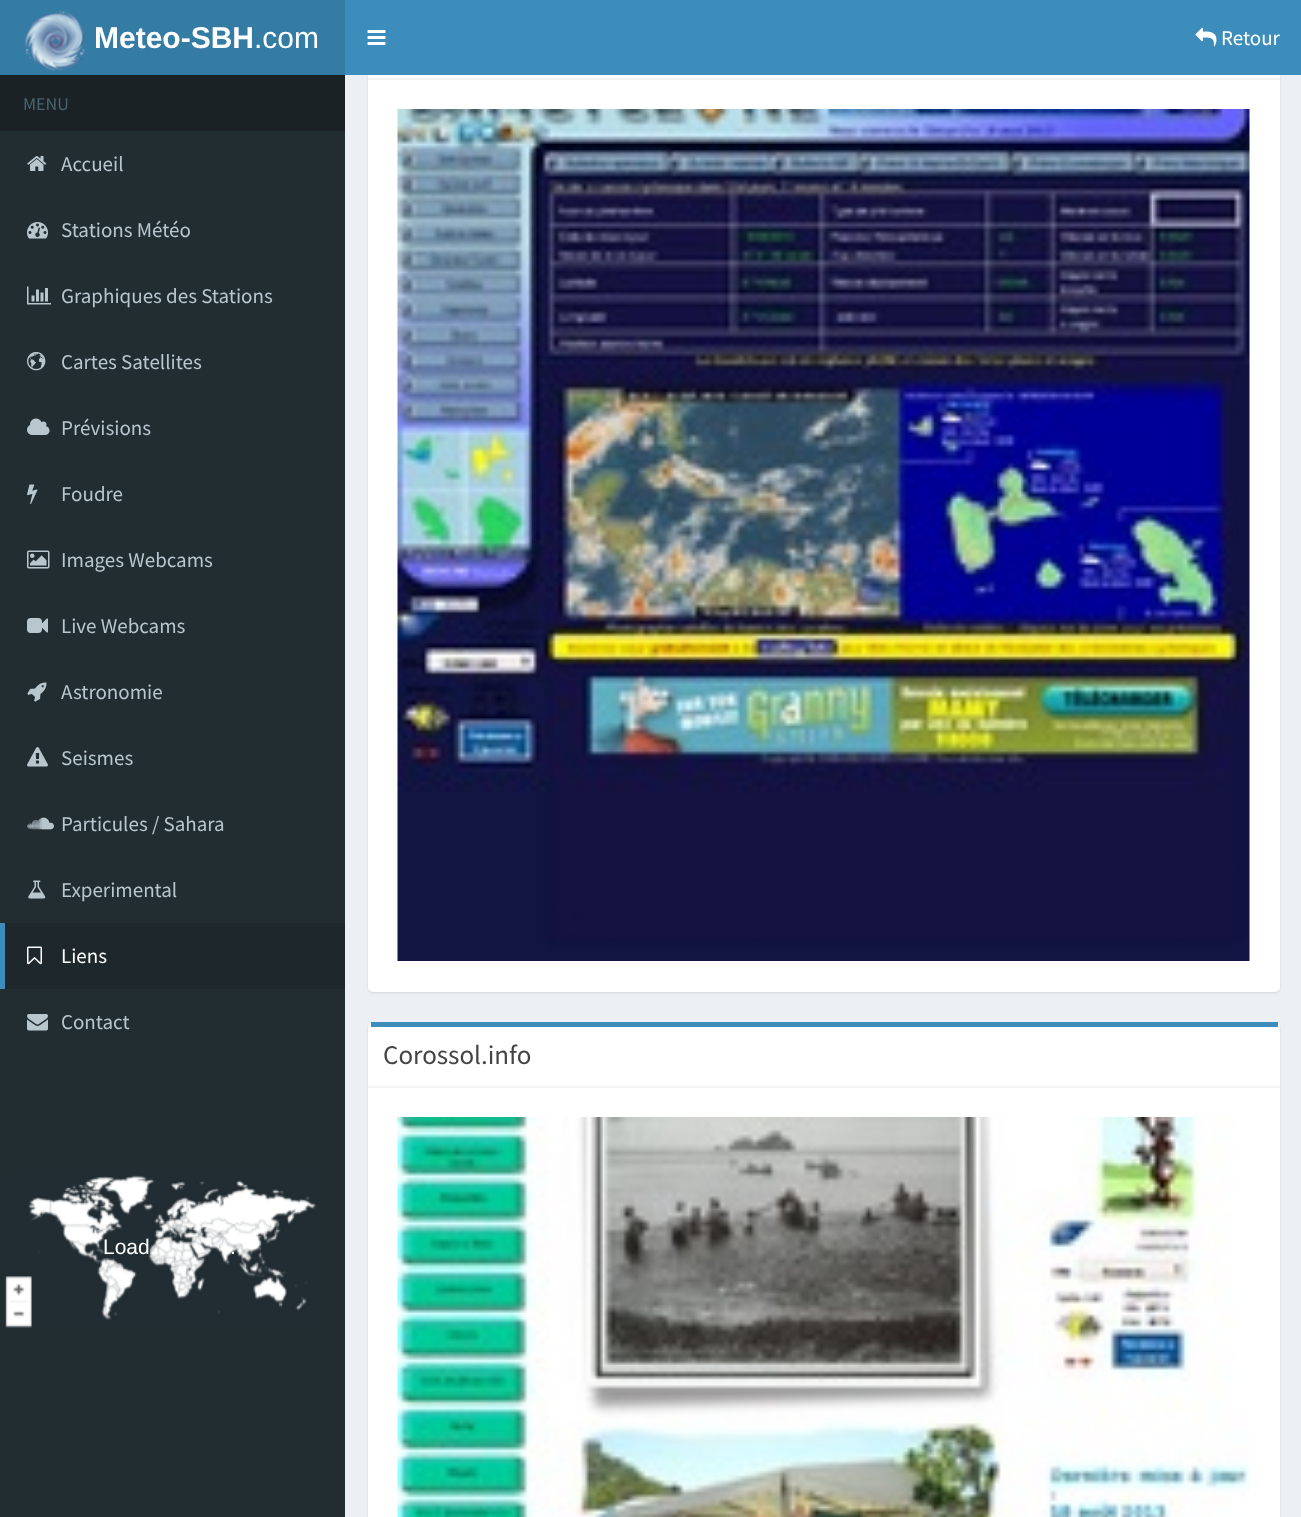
<svg xmlns="http://www.w3.org/2000/svg" width="1301" height="1517" viewBox="0 0 1301 1517">
  <style>
    .t1 { font: bold 30px Liberation Sans; fill: #fff; }
    .t2 { font: 30px Liberation Sans; fill: #fff; }
    .t3 { font: 21px Source Sans Pro; fill: #fff; }
    .t4 { font: 18px Source Sans Pro; fill: #4b646f; }
    .t5 { font: 21px Source Sans Pro; fill: #b8c7ce; }
    .t6 { font: 21px Liberation Sans; fill: #fff; }
    .t7 { font: 27px Source Sans Pro; fill: #444; }
  </style>
  <rect width="100%" height="100%" fill="#222d32"/>
  <rect x="0" y="0" width="345" height="75" fill="#357ca5"/>
  <image x="25" y="10" width="61" height="61" href="images/1.png"/>
  <text x="94" y="48" class="t1">Meteo-SBH</text>
  <text x="254" y="48" class="t2">.com</text>
  <rect x="345" y="75" width="956" height="1442" fill="#ecf0f5"/>
  <rect x="368" y="15" width="912" height="978" rx="5" fill="#0000001a" filter="blur(1px)"/>
  <rect x="368" y="14" width="912" height="978" rx="5" fill="#fff"/>
  <rect x="345" y="0" width="956" height="75" fill="#3c8dbc"/>
  <image x="367" y="30" width="19" height="15" href="images/2.png"/>
  <image x="1195" y="27" width="22" height="20" href="images/3.png"/>
  <text x="1221" y="45" class="t3">Retour</text>
  <rect x="0" y="75" width="345" height="56" fill="#1a2226"/>
  <text x="23" y="110" class="t4">MENU</text>
  <image x="27" y="156" width="20" height="15" href="images/4.png"/>
  <text x="61" y="171" class="t5">Accueil</text>
  <image x="27" y="222" width="21" height="17" href="images/5.png"/>
  <text x="61" y="237" class="t5">Stations Météo</text>
  <image x="27" y="286" width="24" height="19" href="images/6.png"/>
  <text x="61" y="303" class="t5">Graphiques des Stations</text>
  <image x="27" y="351" width="19" height="20" href="images/7.png"/>
  <text x="61" y="369" class="t5">Cartes Satellites</text>
  <image x="27" y="418" width="23" height="17" href="images/8.png"/>
  <text x="61" y="435" class="t5">Prévisions</text>
  <image x="27" y="484" width="11" height="20" href="images/9.png"/>
  <text x="61" y="501" class="t5">Foudre</text>
  <image x="27" y="550" width="23" height="19" href="images/10.png"/>
  <text x="61" y="567" class="t5">Images Webcams</text>
  <image x="27" y="618" width="21" height="15" href="images/11.png"/>
  <text x="61" y="633" class="t5">Live Webcams</text>
  <image x="27" y="682" width="20" height="20" href="images/12.png"/>
  <text x="61" y="699" class="t5">Astronomie</text>
  <image x="27" y="747" width="21" height="20" href="images/13.png"/>
  <text x="61" y="765" class="t5">Seismes</text>
  <image x="27" y="817" width="27" height="13" href="images/14.png"/>
  <text x="61" y="831" class="t5">Particules / Sahara</text>
  <image x="28" y="880" width="18" height="19" href="images/15.png"/>
  <text x="61" y="897" class="t5">Experimental</text>
  <rect x="5" y="923" width="340" height="66" fill="#1e282c"/>
  <rect x="0" y="923" width="5" height="66" fill="#3c8dbc"/>
  <image x="27" y="946" width="15" height="19" href="images/16.png"/>
  <text x="61" y="963" class="t3">Liens</text>
  <image x="27" y="1014" width="21" height="17" href="images/17.png"/>
  <text x="61" y="1029" class="t5">Contact</text>
  <image x="5" y="1175" width="312" height="153" href="images/18.png"/>
  <text x="103" y="1254" class="t6">Load</text>
  <text x="230" y="1254" class="t6">.</text>
  <rect x="368" y="78" width="912" height="2" fill="#f4f4f4"/>
  <image x="397" y="109" width="853" height="852" href="images/19.png"/>
  <rect x="368" y="1023" width="912" height="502" rx="5" fill="#0000001a" filter="blur(1px)"/>
  <rect x="368" y="1022" width="912" height="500" rx="5" fill="#fff"/>
  <rect x="371" y="1022" width="907" height="5" fill="#3c8dbc"/>
  <rect x="368" y="1086" width="912" height="2" fill="#f4f4f4"/>
  <text x="383" y="1064" class="t7">Corossol.info</text>
  <image x="397" y="1117" width="853" height="400" href="images/20.png"/>
</svg>
